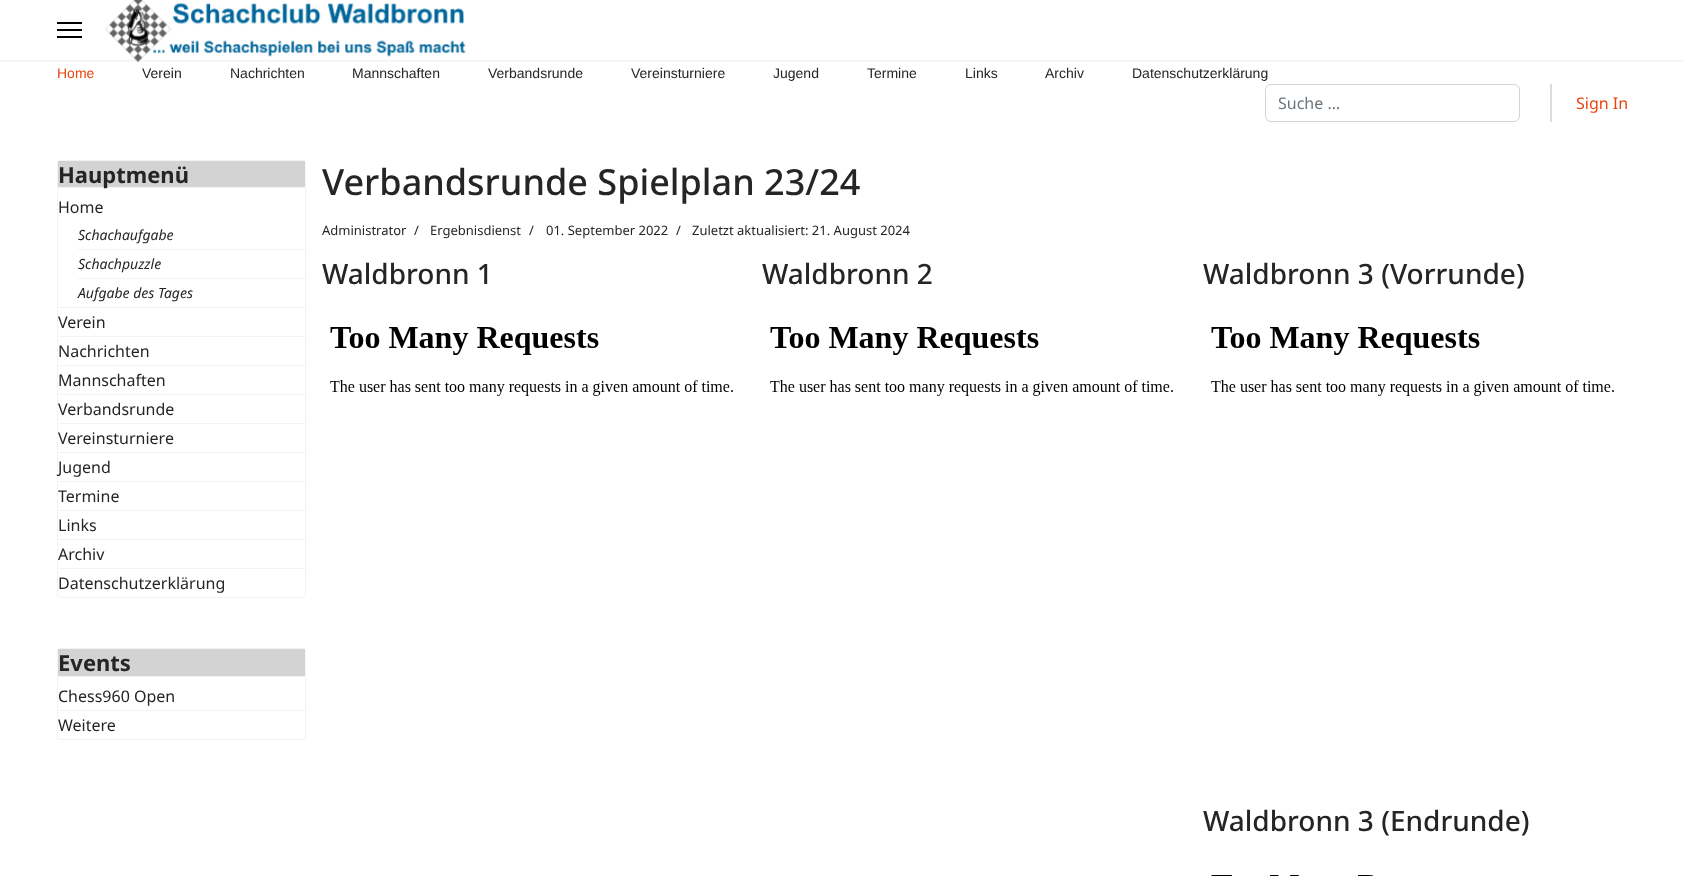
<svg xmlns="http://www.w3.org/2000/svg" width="1685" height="876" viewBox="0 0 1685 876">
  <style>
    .t1 { font: 14px Liberation Sans; fill: #ec430f; }
    .t2 { font: 14px Liberation Sans; fill: #252525; }
    .t3 { font: 16px Noto Sans; fill: #6c757d; }
    .t4 { font: 16px Noto Sans; fill: #ec430f; }
    .t5 { font: bold 22px Noto Sans; fill: #252525; }
    .t6 { font: 16px Noto Sans; fill: #252525; }
    .t7 { font: italic 14px Noto Sans; fill: #252525; }
    .t8 { font: 500 36px Noto Sans; fill: #252525; }
    .t9 { font: 13px Noto Sans; fill: #252525; }
    .t10 { font: 500 28px Noto Sans; fill: #252525; }
  </style>
  <defs>
    <clipPath id="clip1"><rect x="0" y="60" width="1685" height="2"/></clipPath>
  </defs>
  <rect width="100%" height="100%" fill="#fff"/>
  <g clip-path="url(#clip1)">
    <rect x="0" y="0" width="1685" height="60" fill="#0000001a" filter="blur(2px)"/>
  </g>
  <rect x="57" y="22" width="25" height="2" fill="#000"/>
  <rect x="57" y="29" width="25" height="2" fill="#000"/>
  <rect x="57" y="36" width="25" height="2" fill="#000"/>
  <image x="105" y="0" width="361" height="63" href="images/1.png"/>
  <text x="57" y="78" class="t1">Home</text>
  <text x="142" y="78" class="t2">Verein</text>
  <text x="230" y="78" class="t2">Nachrichten</text>
  <text x="352" y="78" class="t2">Mannschaften</text>
  <text x="488" y="78" class="t2">Verbandsrunde</text>
  <text x="631" y="78" class="t2">Vereinsturniere</text>
  <text x="773" y="78" class="t2">Jugend</text>
  <text x="867" y="78" class="t2">Termine</text>
  <text x="965" y="78" class="t2">Links</text>
  <text x="1045" y="78" class="t2">Archiv</text>
  <text x="1132" y="78" class="t2">Datenschutzerklärung</text>
  <rect x="1550" y="84" width="2" height="38" fill="#dcdcdc"/>
  <rect x="1265.5" y="84.5" width="254" height="37" rx="5.5" fill="none" stroke="#ced4da"/>
  <text x="1278" y="109" class="t3">Suche …</text>
  <text x="1576" y="109" class="t4">Sign In</text>
  <rect x="57.5" y="160.5" width="248" height="437" rx="2.5" fill="none" stroke="#f3f3f3"/>
  <rect x="58" y="161" width="247" height="26" fill="#d3d3d3"/>
  <rect x="58" y="187" width="247" height="1" fill="#f3f3f3"/>
  <text x="58" y="183" class="t5">Hauptmenü</text>
  <rect x="58" y="307" width="247" height="1" fill="#f3f3f3"/>
  <text x="58" y="213" class="t6">Home</text>
  <rect x="78" y="249" width="227" height="1" fill="#f3f3f3"/>
  <text x="78" y="240" class="t7">Schachaufgabe</text>
  <rect x="78" y="278" width="227" height="1" fill="#f3f3f3"/>
  <text x="78" y="269" class="t7">Schachpuzzle</text>
  <text x="78" y="298" class="t7">Aufgabe des Tages</text>
  <rect x="58" y="336" width="247" height="1" fill="#f3f3f3"/>
  <text x="58" y="328" class="t6">Verein</text>
  <rect x="58" y="365" width="247" height="1" fill="#f3f3f3"/>
  <text x="58" y="357" class="t6">Nachrichten</text>
  <rect x="58" y="394" width="247" height="1" fill="#f3f3f3"/>
  <text x="58" y="386" class="t6">Mannschaften</text>
  <rect x="58" y="423" width="247" height="1" fill="#f3f3f3"/>
  <text x="58" y="415" class="t6">Verbandsrunde</text>
  <rect x="58" y="452" width="247" height="1" fill="#f3f3f3"/>
  <text x="58" y="444" class="t6">Vereinsturniere</text>
  <rect x="58" y="481" width="247" height="1" fill="#f3f3f3"/>
  <text x="58" y="473" class="t6">Jugend</text>
  <rect x="58" y="510" width="247" height="1" fill="#f3f3f3"/>
  <text x="58" y="502" class="t6">Termine</text>
  <rect x="58" y="539" width="247" height="1" fill="#f3f3f3"/>
  <text x="58" y="531" class="t6">Links</text>
  <rect x="58" y="568" width="247" height="1" fill="#f3f3f3"/>
  <text x="58" y="560" class="t6">Archiv</text>
  <text x="58" y="589" class="t6">Datenschutzerklärung</text>
  <rect x="57.5" y="648.5" width="248" height="91" rx="2.5" fill="none" stroke="#f3f3f3"/>
  <rect x="58" y="649" width="247" height="27" fill="#d3d3d3"/>
  <rect x="58" y="676" width="247" height="1" fill="#f3f3f3"/>
  <text x="58" y="671" class="t5">Events</text>
  <rect x="58" y="710" width="247" height="1" fill="#f3f3f3"/>
  <text x="58" y="702" class="t6">Chess960 Open</text>
  <text x="58" y="731" class="t6">Weitere</text>
  <text x="322" y="195" class="t8">Verbandsrunde Spielplan 23/24</text>
  <text x="322" y="235" class="t9">Administrator</text>
  <text x="414" y="235" class="t9">/</text>
  <text x="430" y="235" class="t9">Ergebnisdienst</text>
  <text x="529" y="235" class="t9">/</text>
  <text x="546" y="235" class="t9">01. September 2022</text>
  <text x="676" y="235" class="t9">/</text>
  <text x="692" y="235" class="t9">Zuletzt aktualisiert: 21. August 2024</text>
  <text x="322" y="284" class="t10">Waldbronn 1</text>
  <image x="330" y="327" width="403" height="69" href="images/2.png"/>
  <text x="762" y="284" class="t10">Waldbronn 2</text>
  <image x="770" y="327" width="403" height="69" href="images/2.png"/>
  <text x="1203" y="284" class="t10">Waldbronn 3 (Vorrunde)</text>
  <image x="1211" y="327" width="403" height="69" href="images/2.png"/>
  <text x="1203" y="831" class="t10">Waldbronn 3 (Endrunde)</text>
  <image x="1211" y="875" width="163" height="1" href="images/3.png"/>
</svg>
